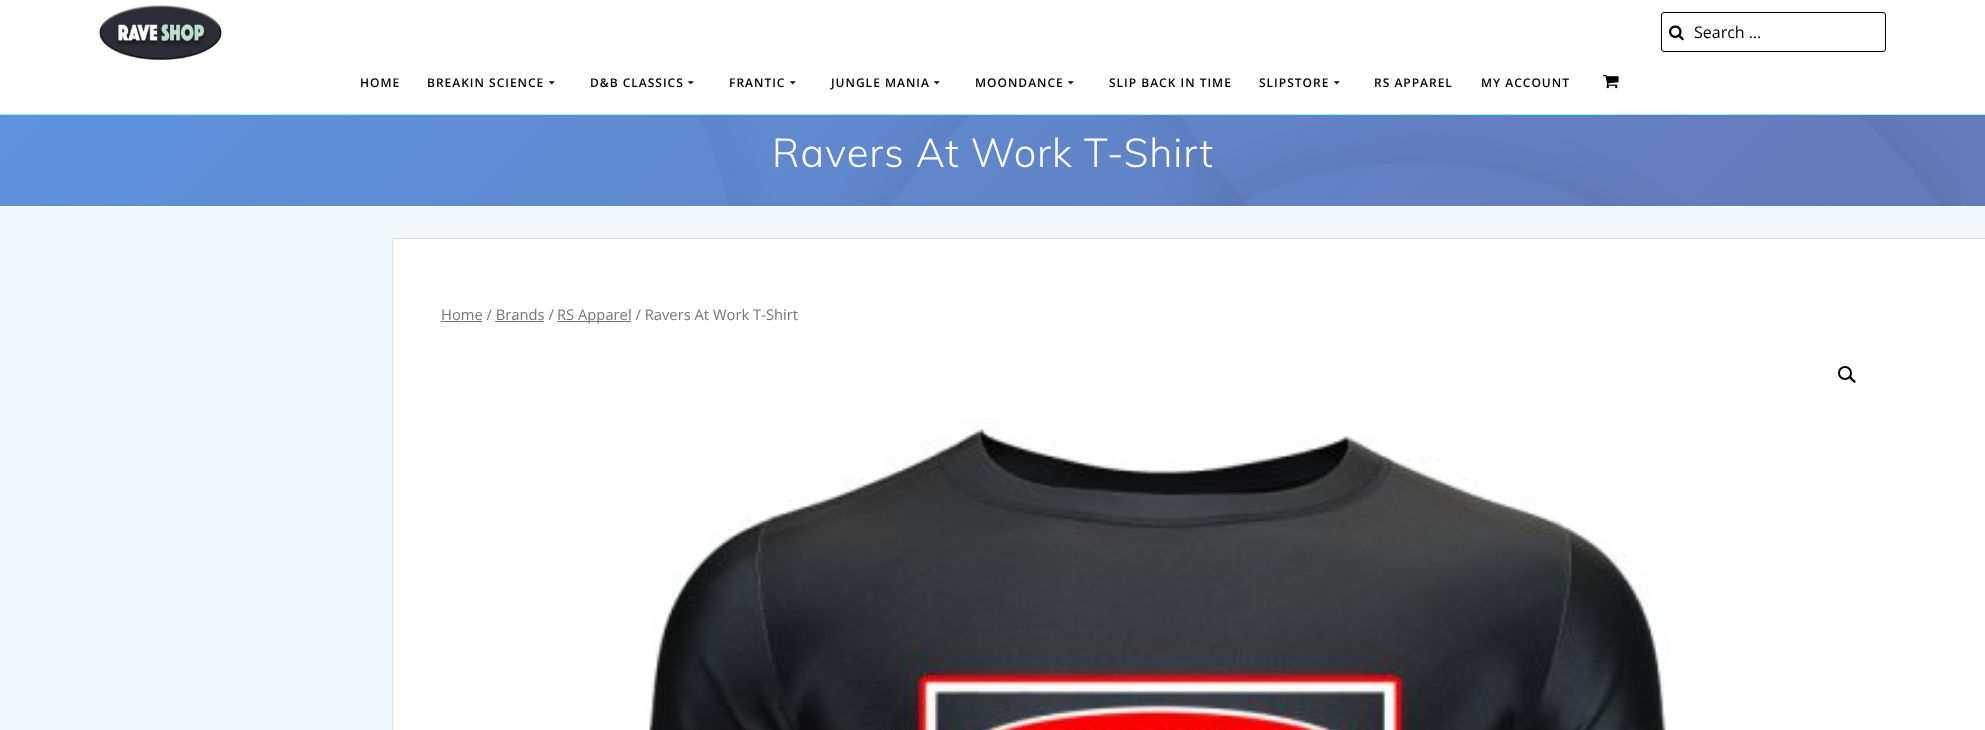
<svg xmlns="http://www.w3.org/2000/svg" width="1985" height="730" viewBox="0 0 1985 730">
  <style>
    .t1 { font: 16px Open Sans; fill: #000; }
    .t2 { font: 600 12px Open Sans; letter-spacing: 1px; fill: #000; }
    .t3 { font: 300 40px Muli; letter-spacing: 0.9px; fill: #fff; }
    .t4 { font: 14.75px Open Sans; fill: #767676; }
  </style>
  <defs>
    <linearGradient id="g1" gradientUnits="userSpaceOnUse" x1="445" y1="-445" x2="1540" y2="651"><stop offset="0" stop-color="#5d93dd"/><stop offset="1" stop-color="#657ab9"/></linearGradient>
  </defs>
  <rect width="100%" height="100%" fill="#f2f8fc"/>
  <rect x="0" y="0" width="1985" height="114" fill="#fff"/>
  <rect x="0" y="114" width="1985" height="1" fill="#8cfde5"/>
  <image x="99" y="5" width="123" height="55" href="images/1.png"/>
  <rect x="1661.5" y="12.5" width="224" height="39" rx="2.5" fill="none" stroke="#000"/>
  <image x="1669" y="25" width="15" height="16" href="images/2.png"/>
  <text x="1694" y="38" class="t1">Search …</text>
  <text x="360" y="87" class="t2">HOME</text>
  <text x="427" y="87" class="t2">BREAKIN SCIENCE</text>
  <image x="549" y="81" width="6" height="4" href="images/3.png"/>
  <text x="590" y="87" class="t2">D&amp;B CLASSICS</text>
  <image x="688" y="81" width="6" height="4" href="images/3.png"/>
  <text x="729" y="87" class="t2">FRANTIC</text>
  <image x="790" y="81" width="6" height="4" href="images/3.png"/>
  <text x="831" y="87" class="t2">JUNGLE MANIA</text>
  <image x="934" y="81" width="6" height="4" href="images/3.png"/>
  <text x="975" y="87" class="t2">MOONDANCE</text>
  <image x="1068" y="81" width="6" height="4" href="images/3.png"/>
  <text x="1109" y="87" class="t2">SLIP BACK IN TIME</text>
  <text x="1259" y="87" class="t2">SLIPSTORE</text>
  <image x="1334" y="81" width="6" height="4" href="images/3.png"/>
  <text x="1374" y="87" class="t2">RS APPAREL</text>
  <text x="1481" y="87" class="t2">MY ACCOUNT</text>
  <image x="1603" y="75" width="16" height="14" href="images/4.png"/>
  <rect x="0" y="115" width="1985" height="91" fill="url(#g1)"/>
  <image x="700" y="115" width="1261" height="91" href="images/5.png"/>
  <text x="772" y="167" class="t3">Ravers At Work T-Shirt</text>
  <rect x="392.5" y="238.5" width="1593" height="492" fill="#fff" stroke="#e0e1e1"/>
  <text x="441" y="320" class="t4">Home / Brands /</text>
  <rect x="441" y="321" width="41" height="1" fill="#767676"/>
  <rect x="557" y="321" width="74" height="1" fill="#767676"/>
  <text x="557" y="320" class="t4">RS Apparel / Ravers At Work T-Shirt</text>
  <rect x="495" y="321" width="49" height="1" fill="#767676"/>
  <circle cx="1845" cy="373" r="6" fill="none" stroke="#000" stroke-width="2"/>
  <path d="M1849.5 376.5C1851 375.5 1852.5 378 1853 379C1854 379.5 1856.5 381 1855.5 382.5C1854 383.5 1852.5 381 1851.5 380.5C1851 379.5 1848.5 378 1849.5 376.5Z" fill="#000"/>
  <image x="646" y="418" width="1023" height="312" href="images/6.png"/>
</svg>
